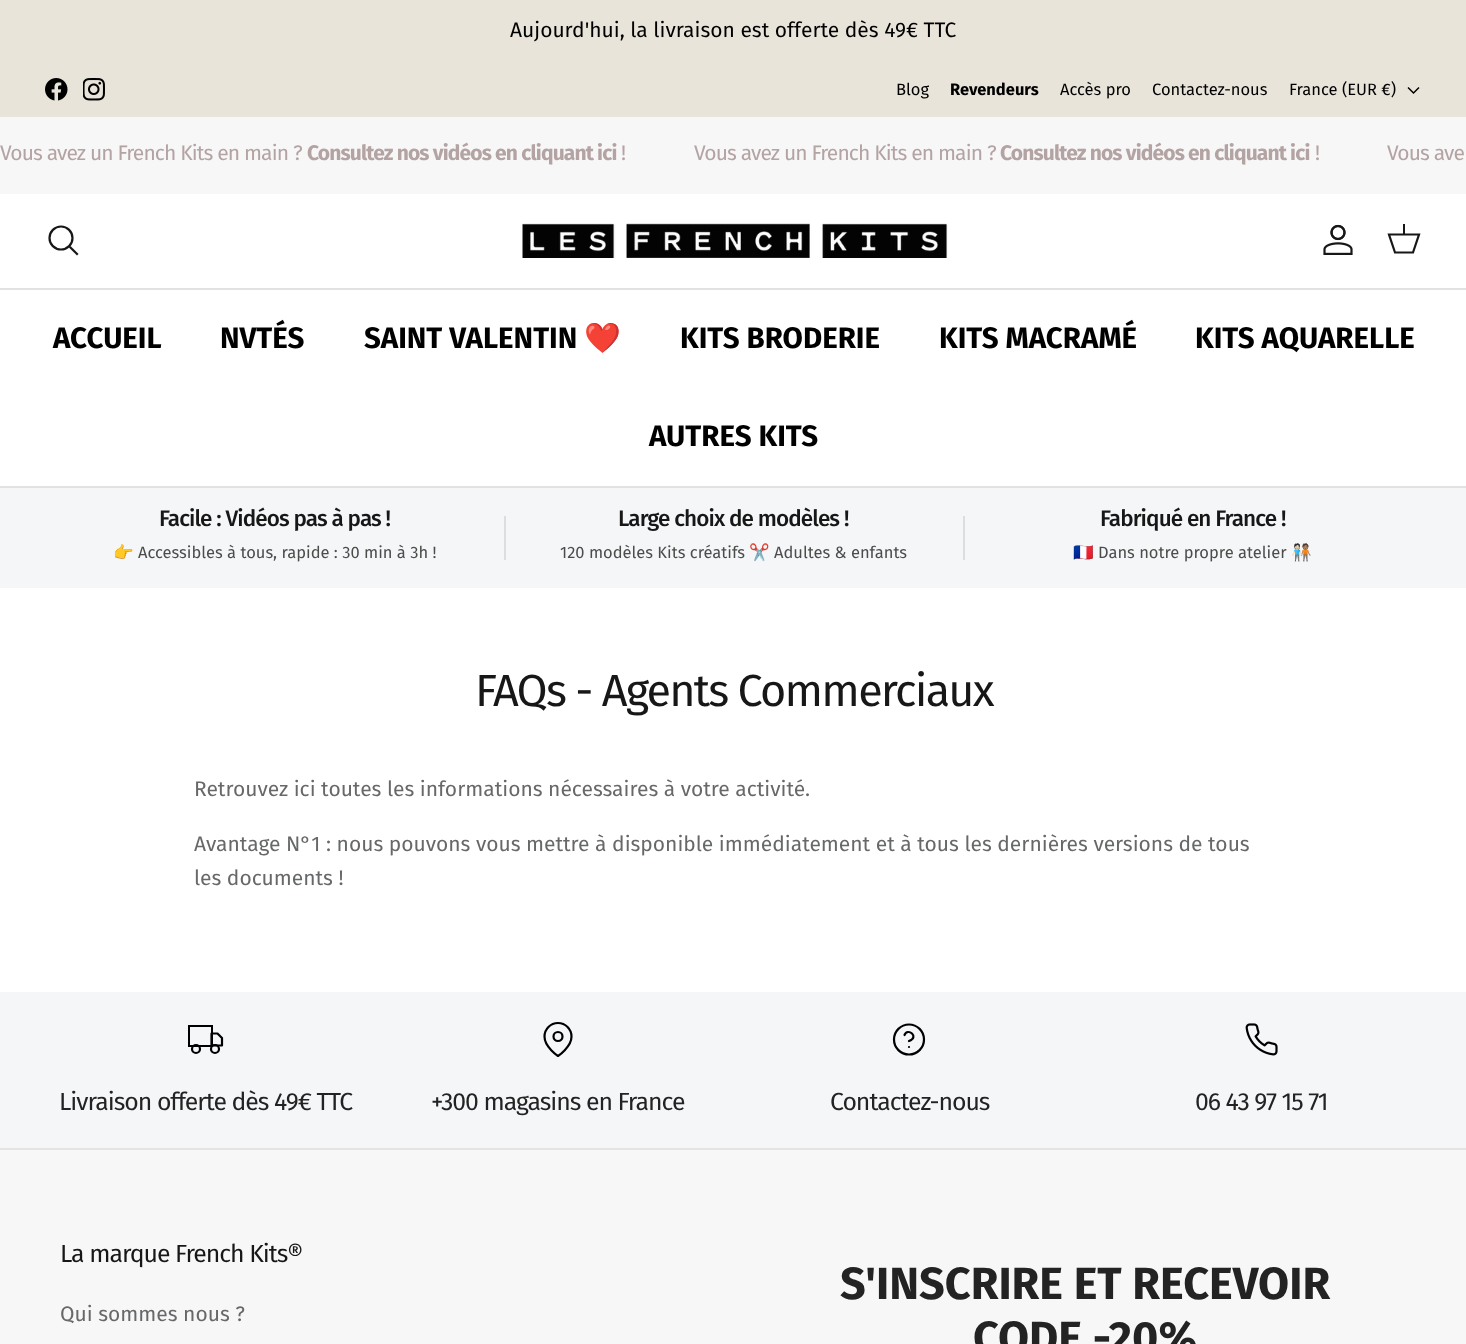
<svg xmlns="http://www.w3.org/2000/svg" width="1466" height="1344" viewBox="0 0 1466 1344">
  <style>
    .t1 { font: 21px Fira Sans; fill: #000; }
    .t2 { font: 16.5px Fira Sans; fill: #000; }
    .t3 { font: bold 16.5px Fira Sans; fill: #000; }
    .t4 { font: 21px Fira Sans; letter-spacing: -0.85px; fill: #b4a3a3; }
    .t5 { font: bold 21px Fira Sans; letter-spacing: -0.85px; fill: #b4a3a3; }
    .t6 { font: bold 29.5px Fira Sans; fill: #000; }
    .t7 { font: bold 29.5px Noto Color Emoji; fill: #000; }
    .t8 { font: 500 22.5px Fira Sans; letter-spacing: -0.9px; fill: #171717; }
    .t9 { font: 16.5px Noto Color Emoji; fill: #4c4c4b; }
    .t10 { font: 16.5px Fira Sans; fill: #4c4c4b; }
    .t11 { font: 45px Fira Sans; letter-spacing: -1.8px; fill: #171717; }
    .t12 { font: 21px Fira Sans; fill: #676869; }
    .t13 { font: 24.8px Fira Sans; letter-spacing: -1px; fill: #232323; }
    .t14 { font: 24.8px Fira Sans; letter-spacing: -1px; fill: #171717; }
    .t15 { font: bold 45px Fira Sans; fill: #232323; }
  </style>
  <rect width="100%" height="100%" fill="#fff"/>
  <rect x="0" y="0" width="1466" height="117" fill="#e9e4da"/>
  <text x="510" y="37" class="t1">Aujourd'hui, la livraison est offerte dès 49€ TTC</text>
  <image x="45" y="78" width="23" height="23" href="images/1.png"/>
  <image x="83" y="78" width="22" height="23" href="images/2.png"/>
  <text x="896" y="95" class="t2">Blog</text>
  <text x="950" y="95" class="t3">Revendeurs</text>
  <text x="1060" y="95" class="t2">Accès pro</text>
  <text x="1152" y="95" class="t2">Contactez-nous</text>
  <text x="1289" y="95" class="t2">France (EUR €)</text>
  <path d="M1419 87.5L1413.5 93L1408 87.5" fill="none" stroke="#000" stroke-width="1.5"/>
  <rect x="0" y="117" width="1466" height="77" fill="#f7f7f8"/>
  <text x="0" y="160" class="t4">Vous avez un French Kits en main ?</text>
  <text x="307" y="160" class="t5">Consultez nos vidéos en cliquant ici</text>
  <text x="621" y="160" class="t4">!</text>
  <text x="694" y="160" class="t4">Vous avez un French Kits en main ?</text>
  <text x="1000" y="160" class="t5">Consultez nos vidéos en cliquant ici</text>
  <text x="1315" y="160" class="t4">!</text>
  <text x="1387" y="160" class="t4">Vous ave</text>
  <rect x="0" y="288" width="1466" height="2" fill="#e2e2e2"/>
  <circle cx="61" cy="238" r="11.5" fill="none" stroke="#171717" stroke-width="2.2"/>
  <path d="M70.5 247.5L77 254" fill="none" stroke="#171717" stroke-width="2.2" stroke-linecap="square"/>
  <image x="522" y="223" width="426" height="35" href="images/3.png"/>
  <image x="1323" y="224" width="30" height="31" href="images/4.png"/>
  <path d="M1389 234.5H1419L1413 252.5H1395Z" fill="none" stroke="#171717" stroke-width="2.2"/>
  <rect x="1403" y="224" width="2" height="11" fill="#171717"/>
  <rect x="0" y="486" width="1466" height="2" fill="#e2e2e2"/>
  <text x="53" y="348" class="t6">ACCUEIL</text>
  <text x="220" y="348" class="t6">NVTÉS</text>
  <text x="364" y="348" class="t6">SAINT VALENTIN</text>
  <text x="584" y="348" class="t7">❤️</text>
  <text x="680" y="348" class="t6">KITS BRODERIE</text>
  <text x="939" y="348" class="t6">KITS MACRAMÉ</text>
  <text x="1195" y="348" class="t6">KITS AQUARELLE</text>
  <text x="649" y="446" class="t6">AUTRES KITS</text>
  <rect x="0" y="488" width="1466" height="100" fill="#f4f6f8"/>
  <text x="159" y="526" class="t8">Facile : Vidéos pas à pas !</text>
  <text x="113" y="558" class="t9">👉</text>
  <text x="138" y="558" class="t10">Accessibles à tous, rapide : 30 min à 3h !</text>
  <rect x="504" y="516" width="2" height="44" fill="#dbddde"/>
  <text x="618" y="526" class="t8">Large choix de modèles !</text>
  <text x="560" y="558" class="t10">120 modèles Kits créatifs</text>
  <text x="749" y="558" class="t9">✂️</text>
  <text x="774" y="558" class="t10">Adultes &amp; enfants</text>
  <rect x="963" y="516" width="2" height="44" fill="#dbddde"/>
  <text x="1100" y="526" class="t8">Fabriqué en France !</text>
  <text x="1073" y="558" class="t9">🇫🇷</text>
  <text x="1098" y="558" class="t10">Dans notre propre atelier</text>
  <text x="1291" y="558" class="t9">🧑🏻‍🤝‍🧑🏽</text>
  <text x="475" y="706" class="t11">FAQs - Agents Commerciaux</text>
  <text x="194" y="796" class="t12">Retrouvez ici toutes les informations nécessaires à votre activité.</text>
  <text x="194" y="851" class="t12">Avantage N°1 : nous pouvons vous mettre à disponible immédiatement et à tous les dernières versions de tous</text>
  <text x="194" y="885" class="t12">les documents !</text>
  <rect x="0" y="992" width="1466" height="156" fill="#f5f6f8"/>
  <rect x="189" y="1026" width="23" height="20" fill="none" stroke="#000" stroke-width="2"/>
  <path d="M211.5 1033.5H217.5L222 1038V1045.5H211.5Z" fill="none" stroke="#000" stroke-width="2.2" stroke-linecap="round" stroke-linejoin="round"/>
  <circle cx="196" cy="1049" r="4" fill="none" stroke="#000" stroke-width="2.2"/>
  <circle cx="215" cy="1049" r="4" fill="none" stroke="#000" stroke-width="2.2"/>
  <text x="59" y="1110" class="t13">Livraison offerte dès 49€ TTC</text>
  <path d="M571.5 1036.5C571.5 1047 558 1056 558 1056C558 1056 544.5 1047 544.5 1036.5C544.5 1029 550.5 1023 558 1023C565.5 1023 571.5 1029 571.5 1036.5Z" fill="none" stroke="#000" stroke-width="2.2" stroke-linecap="round" stroke-linejoin="round"/>
  <circle cx="558" cy="1036.5" r="4.5" fill="none" stroke="#000" stroke-width="2.2"/>
  <text x="431" y="1110" class="t13">+300 magasins en France</text>
  <circle cx="909" cy="1039.5" r="15" fill="none" stroke="#000" stroke-width="2.2"/>
  <path d="M904.5 1035C907.5 1027 920 1037 909 1041M909 1047H909" fill="none" stroke="#000" stroke-width="2.2" stroke-linecap="round" stroke-linejoin="round"/>
  <text x="830" y="1110" class="t13">Contactez-nous</text>
  <image x="1245" y="1023" width="33" height="33" href="images/5.png"/>
  <text x="1195" y="1110" class="t13">06 43 97 15 71</text>
  <rect x="0" y="1150" width="1466" height="194" fill="#f7f7f8"/>
  <rect x="0" y="1148" width="1466" height="2" fill="#e4e4e4"/>
  <text x="60" y="1262" class="t14">La marque French Kits®</text>
  <text x="60" y="1321" class="t12">Qui sommes nous ?</text>
  <text x="840" y="1299" class="t15">S'INSCRIRE ET RECEVOIR</text>
  <text x="973" y="1353" class="t15">CODE -20%</text>
</svg>
